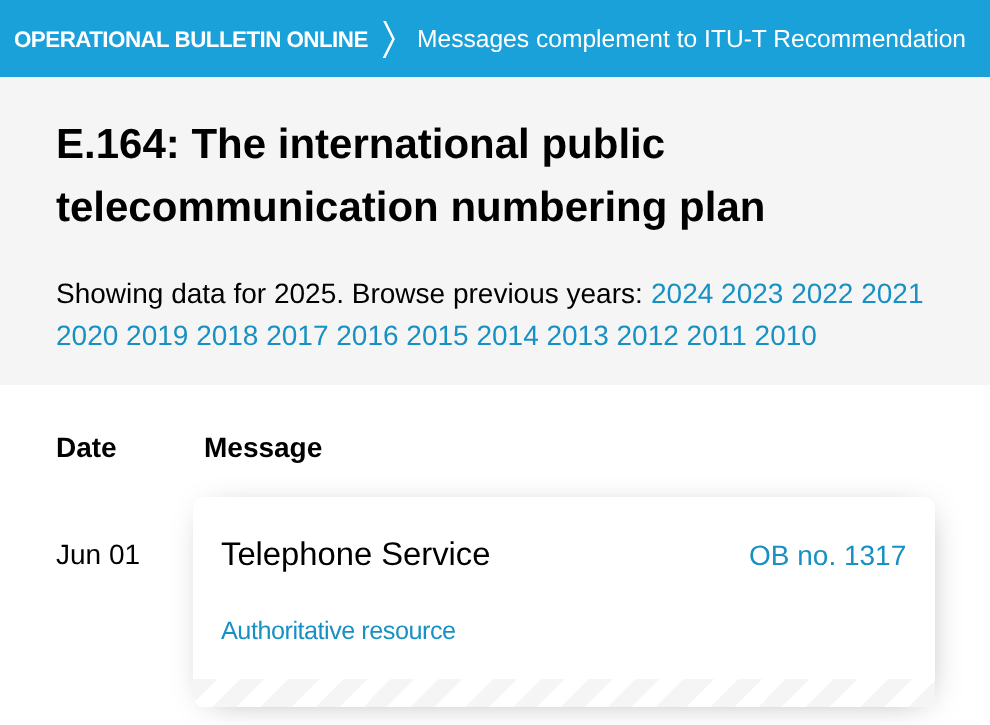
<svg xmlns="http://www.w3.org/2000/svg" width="990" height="725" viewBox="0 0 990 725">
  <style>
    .t1 { font: bold 22.4px Liberation Sans; letter-spacing: -0.55px; fill: #fff; }
    .t2 { font: 24.6px Liberation Sans; fill: #fff; }
    .t3 { font: bold 42px Liberation Sans; fill: #000; }
    .t4 { font: 28px Liberation Sans; fill: #000; }
    .t5 { font: 28px Liberation Sans; fill: #1790c3; }
    .t6 { font: bold 28px Liberation Sans; fill: #000; }
    .t7 { font: 32.75px Liberation Sans; fill: #000; }
    .t8 { font: 25.25px Liberation Sans; letter-spacing: -0.5px; fill: #1790c3; }
  </style>
  <defs>
    <clipPath id="clip1"><rect x="368" y="21" width="598" height="37"/></clipPath>
    <clipPath id="clip2"><path d="M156 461H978V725H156ZM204 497H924C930 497 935 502 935 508V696C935 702 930 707 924 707H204C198 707 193 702 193 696V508C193 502 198 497 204 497Z" clip-rule="evenodd"/></clipPath>
    <linearGradient id="g1" gradientUnits="userSpaceOnUse" x1="371" y1="501" x2="767" y2="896"><stop offset="0" stop-color="#f5f5f5"/><stop offset="0.03" stop-color="#f5f5f5"/><stop offset="0.03" stop-color="#fff"/><stop offset="0.06" stop-color="#fff"/><stop offset="0.06" stop-color="#f5f5f5"/><stop offset="0.09" stop-color="#f5f5f5"/><stop offset="0.09" stop-color="#fff"/><stop offset="0.12" stop-color="#fff"/><stop offset="0.12" stop-color="#f5f5f5"/><stop offset="0.16" stop-color="#f5f5f5"/><stop offset="0.16" stop-color="#fff"/><stop offset="0.19" stop-color="#fff"/><stop offset="0.19" stop-color="#f5f5f5"/><stop offset="0.22" stop-color="#f5f5f5"/><stop offset="0.22" stop-color="#fff"/><stop offset="0.25" stop-color="#fff"/><stop offset="0.25" stop-color="#f5f5f5"/><stop offset="0.28" stop-color="#f5f5f5"/><stop offset="0.28" stop-color="#fff"/><stop offset="0.31" stop-color="#fff"/><stop offset="0.31" stop-color="#f5f5f5"/><stop offset="0.34" stop-color="#f5f5f5"/><stop offset="0.34" stop-color="#fff"/><stop offset="0.38" stop-color="#fff"/><stop offset="0.38" stop-color="#f5f5f5"/><stop offset="0.41" stop-color="#f5f5f5"/><stop offset="0.41" stop-color="#fff"/><stop offset="0.44" stop-color="#fff"/><stop offset="0.44" stop-color="#f5f5f5"/><stop offset="0.47" stop-color="#f5f5f5"/><stop offset="0.47" stop-color="#fff"/><stop offset="0.5" stop-color="#fff"/><stop offset="0.5" stop-color="#f5f5f5"/><stop offset="0.53" stop-color="#f5f5f5"/><stop offset="0.53" stop-color="#fff"/><stop offset="0.56" stop-color="#fff"/><stop offset="0.56" stop-color="#f5f5f5"/><stop offset="0.59" stop-color="#f5f5f5"/><stop offset="0.59" stop-color="#fff"/><stop offset="0.62" stop-color="#fff"/><stop offset="0.62" stop-color="#f5f5f5"/><stop offset="0.66" stop-color="#f5f5f5"/><stop offset="0.66" stop-color="#fff"/><stop offset="0.69" stop-color="#fff"/><stop offset="0.69" stop-color="#f5f5f5"/><stop offset="0.72" stop-color="#f5f5f5"/><stop offset="0.72" stop-color="#fff"/><stop offset="0.75" stop-color="#fff"/><stop offset="0.75" stop-color="#f5f5f5"/><stop offset="0.78" stop-color="#f5f5f5"/><stop offset="0.78" stop-color="#fff"/><stop offset="0.81" stop-color="#fff"/><stop offset="0.81" stop-color="#f5f5f5"/><stop offset="0.84" stop-color="#f5f5f5"/><stop offset="0.84" stop-color="#fff"/><stop offset="0.88" stop-color="#fff"/><stop offset="0.88" stop-color="#f5f5f5"/><stop offset="0.91" stop-color="#f5f5f5"/><stop offset="0.91" stop-color="#fff"/><stop offset="0.94" stop-color="#fff"/><stop offset="0.94" stop-color="#f5f5f5"/><stop offset="0.97" stop-color="#f5f5f5"/><stop offset="0.97" stop-color="#fff"/><stop offset="1" stop-color="#fff"/></linearGradient>
  </defs>
  <rect width="100%" height="100%" fill="#fff"/>
  <rect x="0" y="0" width="990" height="77" fill="#1aa1da"/>
  <text x="14" y="47" class="t1">OPERATIONAL BULLETIN ONLINE</text>
  <g clip-path="url(#clip1)">
    <path d="M367.5-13L393.5 39L367.5 91L341.5 39Z" fill="none" stroke="#fff" stroke-width="2.5"/>
  </g>
  <text x="417" y="47" class="t2">Messages complement to ITU-T Recommendation</text>
  <rect x="0" y="77" width="990" height="308" fill="#f5f5f5"/>
  <text x="56" y="158" class="t3">E.164: The international public</text>
  <text x="56" y="221" class="t3">telecommunication numbering plan</text>
  <text x="56" y="303" class="t4">Showing data for 2025. Browse previous years:</text>
  <text x="651" y="303" class="t5">2024 2023 2022 2021</text>
  <text x="56" y="345" class="t5">2020 2019 2018 2017 2016 2015 2014 2013 2012 2011 2010</text>
  <text x="56" y="457" class="t6">Date</text>
  <g clip-path="url(#clip2)">
    <rect x="210" y="515" width="714" height="182" fill="#00000066" filter="blur(17.5px)"/>
  </g>
  <text x="204" y="457" class="t6">Message</text>
  <text x="56" y="564" class="t4">Jun 01</text>
  <text x="221" y="565" class="t7">Telephone Service</text>
  <text x="749" y="565" class="t5">OB no. 1317</text>
  <text x="221" y="639" class="t8">Authoritative resource</text>
  <path d="M193 679H935V696C935 702 930 707 924 707H204C198 707 193 702 193 696Z" fill="url(#g1)"/>
</svg>
